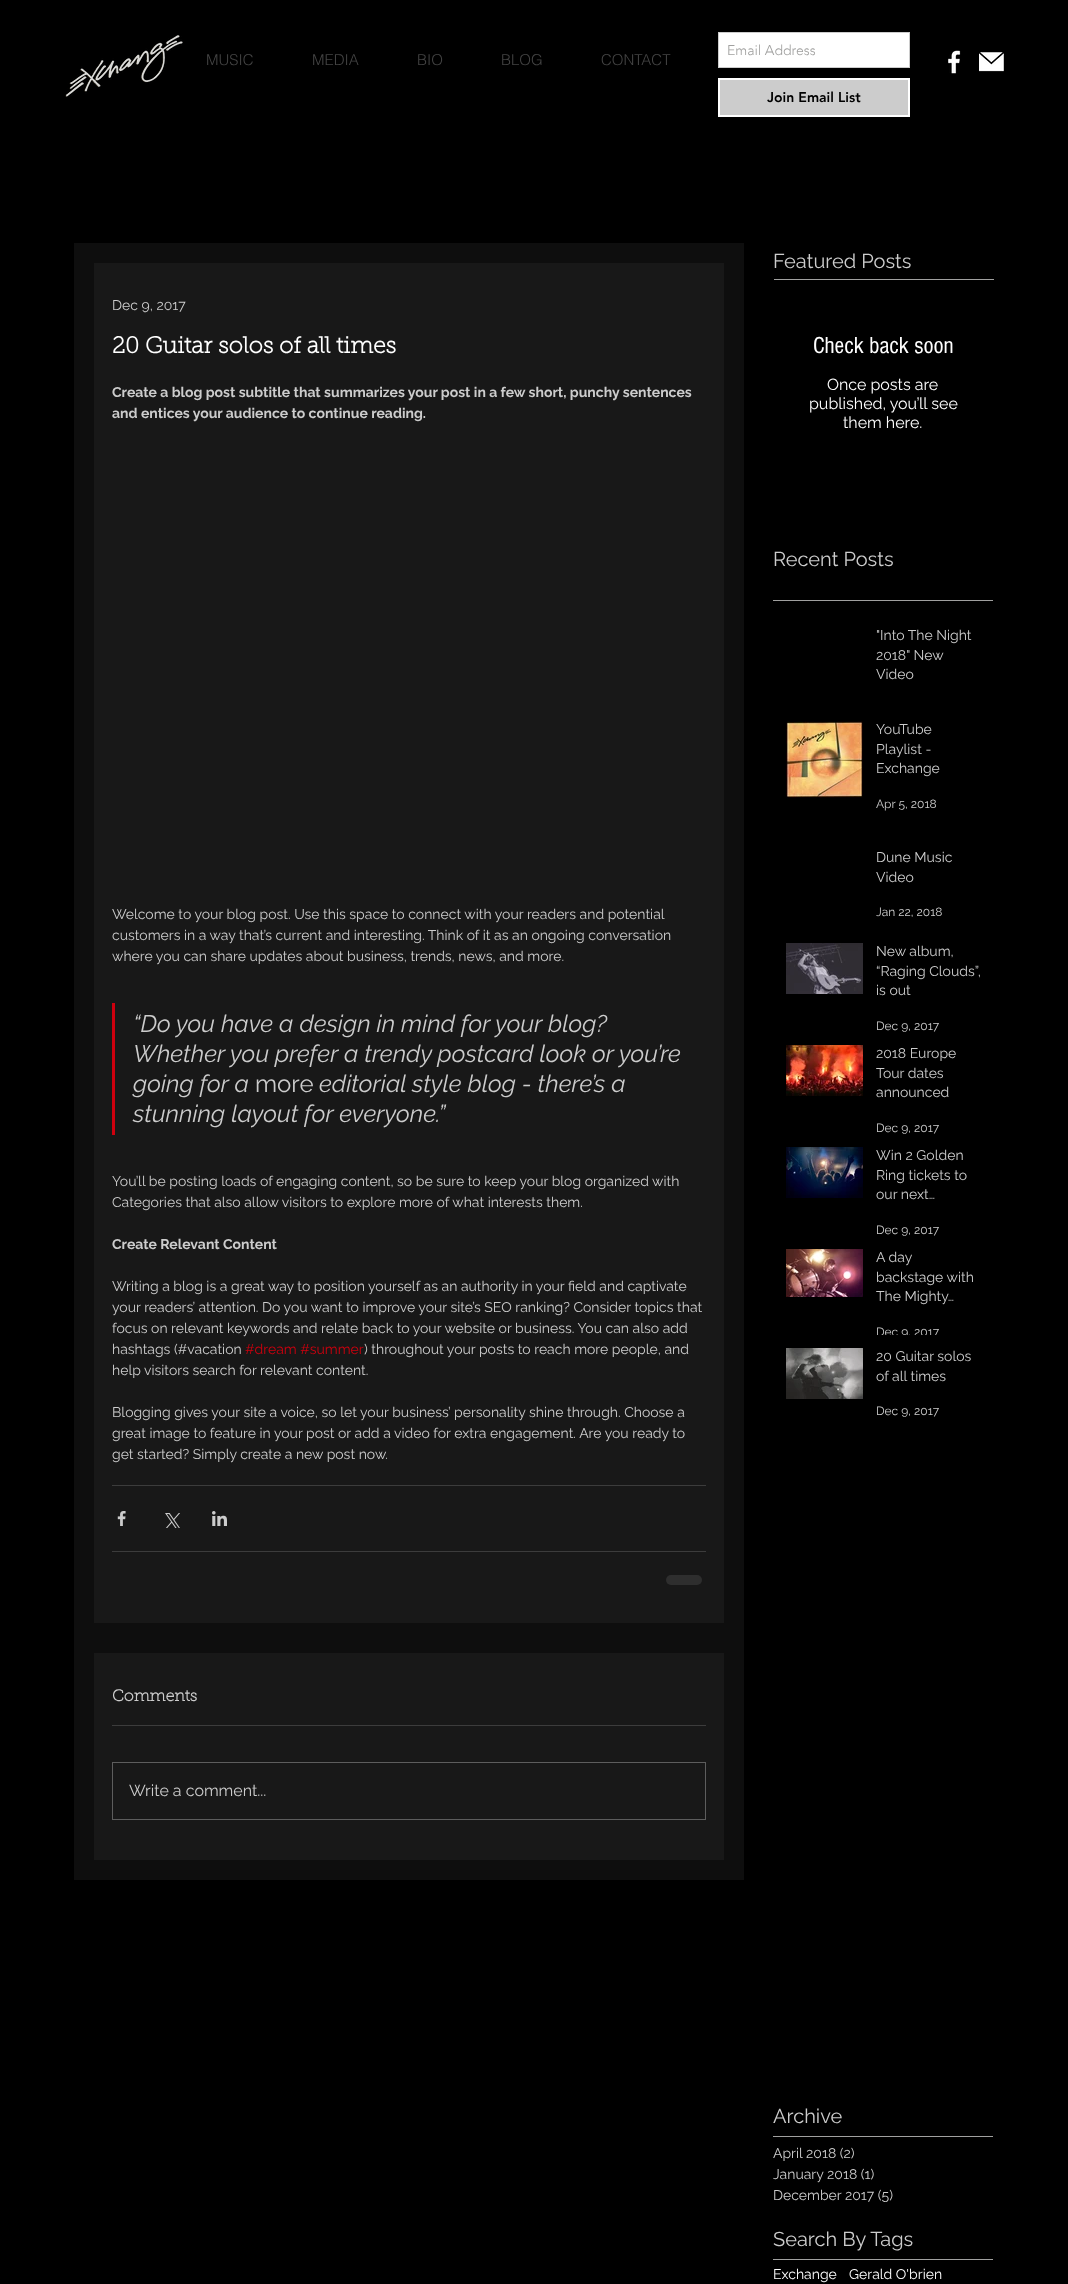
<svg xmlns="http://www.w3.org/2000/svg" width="1068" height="2284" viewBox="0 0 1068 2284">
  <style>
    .t1 { font: 300 15px helvetica; fill: #444; }
    .t2 { font: 300 14px 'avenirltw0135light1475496'; fill: #a0a09f; }
    .t3 { font: 900 14px 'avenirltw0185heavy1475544'; fill: #000; }
    .t4 { font: 20px Raleway; fill: #ccc; }
    .t5 { font: 14px Raleway; fill: #ccc; }
    .t6 { font: bold 23px 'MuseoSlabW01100'; fill: #fff; }
    .t7 { font: bold 14px Raleway; fill: #ccc; }
    .t8 { font: italic 24px Raleway; fill: #ccc; }
    .t9 { font: 24px Raleway; fill: #ccc; }
    .t10 { font: 14px Raleway; fill: #cf000e; }
    .t11 { font: bold 16px 'MuseoSlabW01100'; fill: #ccc; }
    .t12 { font: 16px Raleway; fill: #ccc; }
    .t13 { font: 24px 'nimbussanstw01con'; fill: #fff; }
    .t14 { font: 16px Raleway; fill: #fff; }
    .t15 { font: 12px Raleway; fill: #ccc; }
    .t16 { font: 14px Raleway; fill: #fff; }
  </style>
  <defs>
    <clipPath id="clip1"><rect x="773" y="1236" width="220" height="99"/></clipPath>
  </defs>
  <rect width="100%" height="100%" fill="#000"/>
  <image x="65" y="35" width="118" height="62" href="images/1.png"/>
  <text x="206" y="65" class="t1">MUSIC</text>
  <text x="312" y="65" class="t1">MEDIA</text>
  <text x="417" y="65" class="t1">BIO</text>
  <text x="501" y="65" class="t1">BLOG</text>
  <text x="601" y="65" class="t1">CONTACT</text>
  <rect x="718.5" y="32.5" width="191" height="35" fill="#fff" stroke="#ccc"/>
  <text x="727" y="55" class="t2">Email Address</text>
  <rect x="719" y="79" width="190" height="37" fill="#ccc" stroke="#fff" stroke-width="2"/>
  <text x="767" y="102" class="t3">Join Email List</text>
  <image x="948" y="50" width="13" height="24" href="images/2.png"/>
  <image x="979" y="52" width="25" height="20" href="images/3.png"/>
  <text x="773" y="268" class="t4">Featured Posts</text>
  <rect x="774" y="279" width="220" height="1" fill="#a0a09f"/>
  <rect x="74" y="243" width="670" height="1637" fill="#0e0e0e"/>
  <rect x="94" y="263" width="630" height="1360" fill="#181818"/>
  <text x="112" y="310" class="t5">Dec 9, 2017</text>
  <text x="112" y="353" class="t6">20 Guitar solos of all times</text>
  <text x="112" y="397" class="t7">Create a blog post subtitle that summarizes your post in a few short, punchy sentences</text>
  <text x="112" y="418" class="t7">and entices your audience to continue reading.</text>
  <text x="112" y="919" class="t5">Welcome to your blog post. Use this space to connect with your readers and potential</text>
  <text x="112" y="940" class="t5">customers in a way that’s current and interesting. Think of it as an ongoing conversation</text>
  <text x="112" y="961" class="t5">where you can share updates about business, trends, news, and more.</text>
  <rect x="112" y="1003" width="3" height="132" fill="#cf000e"/>
  <text x="133" y="1032" class="t8">“Do you have a design in mind for your blog?</text>
  <text x="133" y="1062" class="t8">Whether you prefer a trendy postcard look or you’re</text>
  <text x="133" y="1092" class="t8">going for a</text>
  <text x="255" y="1092" class="t9">more</text>
  <text x="319" y="1092" class="t8">editorial style blog - there’s a</text>
  <text x="133" y="1122" class="t8">stunning layout for everyone.”</text>
  <text x="112" y="1186" class="t5">You’ll be posting loads of engaging content, so be sure to keep your blog organized with</text>
  <text x="112" y="1207" class="t5">Categories that also allow visitors to explore more of what interests them.</text>
  <text x="112" y="1249" class="t7">Create Relevant Content</text>
  <text x="112" y="1291" class="t5">Writing a blog is a great way to position yourself as an authority in your field and captivate</text>
  <text x="112" y="1312" class="t5">your readers’ attention. Do you want to improve your site’s SEO ranking? Consider topics that</text>
  <text x="112" y="1333" class="t5">focus on relevant keywords and relate back to your website or business. You can also add</text>
  <text x="112" y="1354" class="t5">hashtags (#vacation</text>
  <text x="245" y="1354" class="t10">#dream #summer</text>
  <text x="364" y="1354" class="t5">) throughout your posts to reach more people, and</text>
  <text x="112" y="1375" class="t5">help visitors search for relevant content.</text>
  <text x="112" y="1417" class="t5">Blogging gives your site a voice, so let your business’ personality shine through. Choose a</text>
  <text x="112" y="1438" class="t5">great image to feature in your post or add a video for extra engagement. Are you ready to</text>
  <text x="112" y="1459" class="t5">get started? Simply create a new post now.</text>
  <rect x="112" y="1485" width="594" height="1" fill="#3c3c3c"/>
  <image x="117" y="1511" width="9" height="15" href="images/4.png"/>
  <image x="165" y="1513" width="15" height="15" href="images/5.png"/>
  <image x="212" y="1511" width="15" height="15" href="images/6.png"/>
  <rect x="112" y="1551" width="594" height="1" fill="#3c3c3c"/>
  <rect x="666" y="1575" width="36" height="10" rx="5" fill="#2e2e2e"/>
  <rect x="94" y="1653" width="630" height="207" fill="#181818"/>
  <text x="112" y="1701" class="t11">Comments</text>
  <rect x="112" y="1725" width="594" height="1" fill="#3c3c3c"/>
  <rect x="112.5" y="1762.5" width="593" height="57" fill="none" stroke="#5d5d5d"/>
  <text x="129" y="1796" class="t12">Write a comment...</text>
  <text x="813" y="353" class="t13">Check back soon</text>
  <text x="827" y="390" class="t14">Once posts are</text>
  <text x="809" y="409" class="t14">published, you’ll see</text>
  <text x="843" y="428" class="t14">them here.</text>
  <text x="773" y="566" class="t4">Recent Posts</text>
  <rect x="773" y="600" width="220" height="1" fill="#a0a09f"/>
  <text x="876" y="640" class="t5">"Into The Night</text>
  <text x="876" y="660" class="t5">2018" New</text>
  <text x="876" y="679" class="t5">Video</text>
  <image x="786" y="721" width="77" height="77" href="images/7.png"/>
  <text x="876" y="734" class="t5">YouTube</text>
  <text x="876" y="754" class="t5">Playlist -</text>
  <text x="876" y="773" class="t5">Exchange</text>
  <text x="876" y="808" class="t15">Apr 5, 2018</text>
  <text x="876" y="862" class="t5">Dune Music</text>
  <text x="876" y="882" class="t5">Video</text>
  <text x="876" y="916" class="t15">Jan 22, 2018</text>
  <image x="786" y="943" width="77" height="51" href="images/8.png"/>
  <text x="876" y="956" class="t5">New album,</text>
  <text x="876" y="976" class="t5">“Raging Clouds”,</text>
  <text x="876" y="995" class="t5">is out</text>
  <text x="876" y="1030" class="t15">Dec 9, 2017</text>
  <image x="786" y="1045" width="77" height="51" href="images/9.png"/>
  <text x="876" y="1058" class="t5">2018 Europe</text>
  <text x="876" y="1078" class="t5">Tour dates</text>
  <text x="876" y="1097" class="t5">announced</text>
  <text x="876" y="1132" class="t15">Dec 9, 2017</text>
  <image x="786" y="1147" width="77" height="51" href="images/10.png"/>
  <text x="876" y="1160" class="t5">Win 2 Golden</text>
  <text x="876" y="1180" class="t5">Ring tickets to</text>
  <text x="876" y="1199" class="t5">our next…</text>
  <text x="876" y="1234" class="t15">Dec 9, 2017</text>
  <image x="786" y="1249" width="77" height="48" href="images/11.png"/>
  <text x="876" y="1262" class="t5">A day</text>
  <text x="876" y="1282" class="t5">backstage with</text>
  <text x="876" y="1301" class="t5">The Mighty…</text>
  <g clip-path="url(#clip1)">
    <text x="876" y="1336" class="t15">Dec 9, 2017</text>
  </g>
  <image x="786" y="1348" width="77" height="51" href="images/12.png"/>
  <text x="876" y="1361" class="t5">20 Guitar solos</text>
  <text x="876" y="1381" class="t5">of all times</text>
  <text x="876" y="1415" class="t15">Dec 9, 2017</text>
  <text x="773" y="2123" class="t4">Archive</text>
  <rect x="773" y="2136" width="220" height="1" fill="#a0a09f"/>
  <text x="773" y="2158" class="t5">April 2018 (2)</text>
  <text x="773" y="2179" class="t5">January 2018 (1)</text>
  <text x="773" y="2200" class="t5">December 2017 (5)</text>
  <text x="773" y="2246" class="t4">Search By Tags</text>
  <rect x="773" y="2259" width="220" height="1" fill="#a0a09f"/>
  <text x="773" y="2279" class="t16">Exchange</text>
  <text x="849" y="2279" class="t16">Gerald O'brien</text>
</svg>
